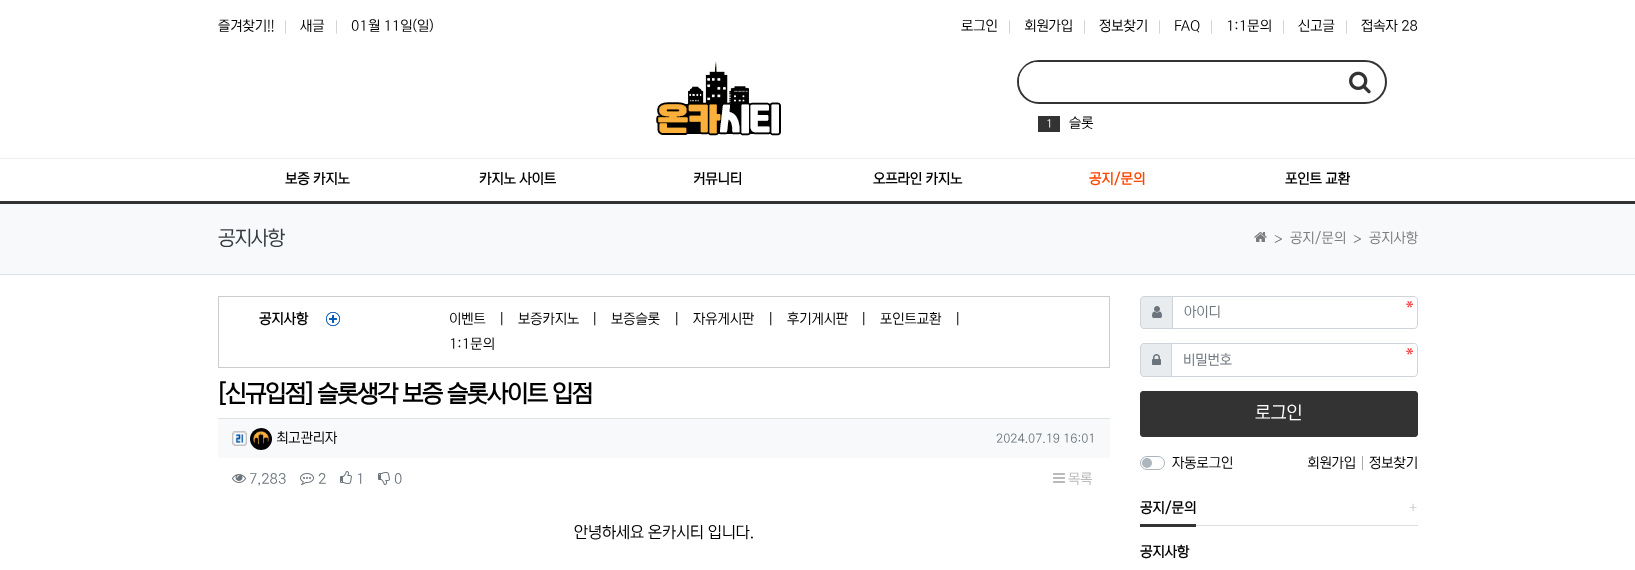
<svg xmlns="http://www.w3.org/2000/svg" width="1635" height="570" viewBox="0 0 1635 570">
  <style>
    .t1 { font: 14px 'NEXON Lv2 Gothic'; fill: #000; }
    .t2 { font: 14px Dotum; fill: #ccc; }
    .t3 { font: 11px 'NEXON Lv2 Gothic'; letter-spacing: -1px; fill: #fff; }
    .t4 { font: bold 14px 'NEXON Lv2 Gothic'; fill: #000; }
    .t5 { font: bold 14px 'NEXON Lv2 Gothic'; fill: #ff4500; }
    .t6 { font: 20px 'NEXON Lv2 Gothic'; letter-spacing: -1px; fill: #343a40; }
    .t7 { font: 14px Dotum; fill: #6c757d; }
    .t8 { font: 14px 'NEXON Lv2 Gothic'; fill: #7c7d7d; }
    .t9 { font: bold 24px 'NEXON Lv2 Gothic'; letter-spacing: -1px; fill: #000; }
    .t10 { font: 12px 'NEXON Lv2 Gothic'; fill: #6c757d; }
    .t11 { font: 14px 'NEXON Lv2 Gothic'; fill: #6c757d; }
    .t12 { font: 14px 'NEXON Lv2 Gothic'; fill: #bababa; }
    .t13 { font: 16px 'NEXON Lv2 Gothic'; fill: #000; }
    .t14 { font: 18px 'NEXON Lv2 Gothic'; fill: #fff; }
    .t15 { font: 14px 'NEXON Lv2 Gothic'; fill: #ccc; }
  </style>
  <rect width="100%" height="100%" fill="#fff"/>
  <text x="218" y="30" class="t1">즐겨찾기!!</text>
  <text x="282" y="32" class="t2">|</text>
  <text x="300" y="30" class="t1">새글</text>
  <text x="333" y="32" class="t2">|</text>
  <text x="351" y="30" class="t1">01월 11일(일)</text>
  <text x="961" y="30" class="t1">로그인</text>
  <text x="1006" y="32" class="t2">|</text>
  <text x="1024" y="30" class="t1">회원가입</text>
  <text x="1081" y="32" class="t2">|</text>
  <text x="1099" y="30" class="t1">정보찾기</text>
  <text x="1156" y="32" class="t2">|</text>
  <text x="1174" y="30" class="t1">FAQ</text>
  <text x="1208" y="32" class="t2">|</text>
  <text x="1226" y="30" class="t1">1:1문의</text>
  <text x="1280" y="32" class="t2">|</text>
  <text x="1298" y="30" class="t1">신고글</text>
  <text x="1343" y="32" class="t2">|</text>
  <text x="1361" y="30" class="t1">접속자 28</text>
  <image x="656" y="61" width="125" height="75" href="images/1.png"/>
  <rect x="1018" y="61" width="368" height="42" rx="21" fill="none" stroke="#333" stroke-width="2"/>
  <rect x="1019" y="62" width="317" height="37" rx="18.5" fill="#fff"/>
  <image x="1349" y="71" width="22" height="23" href="images/2.png"/>
  <rect x="1038" y="116" width="22" height="16" fill="#333"/>
  <text x="1046" y="127" class="t3">1</text>
  <text x="1069" y="127" class="t1">슬롯</text>
  <rect x="0" y="158" width="1635" height="1" fill="#eee"/>
  <rect x="0" y="201" width="1635" height="3" fill="#333"/>
  <text x="285" y="183" class="t4">보증 카지노</text>
  <text x="479" y="183" class="t4">카지노 사이트</text>
  <text x="693" y="183" class="t4">커뮤니티</text>
  <text x="873" y="183" class="t4">오프라인 카지노</text>
  <text x="1089" y="183" class="t5">공지/문의</text>
  <text x="1285" y="183" class="t4">포인트 교환</text>
  <rect x="0" y="204" width="1635" height="70" fill="#f8f9fa"/>
  <text x="218" y="244" class="t6">공지사항</text>
  <image x="1254" y="232" width="13" height="10" href="images/3.png"/>
  <text x="1274" y="244" class="t7">&gt;</text>
  <text x="1290" y="242" class="t8">공지/문의</text>
  <text x="1353" y="244" class="t7">&gt;</text>
  <text x="1369" y="242" class="t8">공지사항</text>
  <rect x="0" y="274" width="1635" height="1" fill="#dee2e6"/>
  <rect x="218.5" y="296.5" width="891" height="71" fill="none" stroke="#ccc"/>
  <text x="259" y="323" class="t4">공지사항</text>
  <image x="326" y="312" width="14" height="14" href="images/4.png"/>
  <text x="449" y="323" class="t1">이벤트</text>
  <text x="499" y="323" class="t1">|</text>
  <text x="518" y="323" class="t1">보증카지노</text>
  <text x="592" y="323" class="t1">|</text>
  <text x="611" y="323" class="t1">보증슬롯</text>
  <text x="674" y="323" class="t1">|</text>
  <text x="693" y="323" class="t1">자유게시판</text>
  <text x="768" y="323" class="t1">|</text>
  <text x="787" y="323" class="t1">후기게시판</text>
  <text x="861" y="323" class="t1">|</text>
  <text x="880" y="323" class="t1">포인트교환</text>
  <text x="955" y="323" class="t1">|</text>
  <text x="449" y="348" class="t1">1:1문의</text>
  <text x="218" y="401" class="t9">[신규입점] 슬롯생각 보증 슬롯사이트 입점</text>
  <rect x="218" y="419" width="892" height="39" fill="#f8f9fa"/>
  <rect x="218" y="418" width="892" height="1" fill="#dee2e6"/>
  <image x="232" y="431" width="15" height="15" href="images/5.png"/>
  <image x="250" y="428" width="22" height="22" href="images/6.png"/>
  <text x="276" y="442" class="t1">최고관리자</text>
  <text x="996" y="442" class="t10">2024.07.19 16:01</text>
  <image x="232" y="474" width="14" height="9" href="images/7.png"/>
  <text x="249" y="483" class="t11">7,283</text>
  <image x="300" y="473" width="14" height="12" href="images/8.png"/>
  <text x="318" y="483" class="t11">2</text>
  <image x="340" y="471" width="12" height="13" href="images/9.png"/>
  <text x="356" y="483" class="t11">1</text>
  <image x="378" y="472" width="12" height="13" href="images/10.png"/>
  <text x="394" y="483" class="t11">0</text>
  <image x="1053" y="473" width="12" height="10" href="images/11.png"/>
  <text x="1068" y="483" class="t12">목록</text>
  <text x="574" y="537" class="t13">안녕하세요 온카시티 입니다.</text>
  <path d="M1144 296.5H1172.5V328.5H1144C1142 328.5 1140.5 327 1140.5 325V300C1140.5 298 1142 296.5 1144 296.5Z" fill="#e9ecef" stroke="#ced4da"/>
  <image x="1152" y="306" width="10" height="12" href="images/12.png"/>
  <image x="1406" y="301" width="7" height="7" href="images/13.png"/>
  <path d="M1172.5 296.5H1414C1416 296.5 1417.5 298 1417.5 300V325C1417.5 327 1416 328.5 1414 328.5H1172.5Z" fill="none" stroke="#ced4da"/>
  <text x="1184" y="316" class="t11">아이디</text>
  <path d="M1144 343.5H1171.5V376.5H1144C1142 376.5 1140.5 375 1140.5 373V347C1140.5 345 1142 343.5 1144 343.5Z" fill="#e9ecef" stroke="#ced4da"/>
  <image x="1152" y="354" width="9" height="11" href="images/14.png"/>
  <image x="1406" y="348" width="7" height="7" href="images/13.png"/>
  <path d="M1171.5 343.5H1414C1416 343.5 1417.5 345 1417.5 347V373C1417.5 375 1416 376.5 1414 376.5H1171.5Z" fill="none" stroke="#ced4da"/>
  <text x="1183" y="364" class="t11">비밀번호</text>
  <rect x="1140.5" y="391.5" width="277" height="45" rx="2.5" fill="#333" stroke="#333"/>
  <text x="1255" y="418" class="t14">로그인</text>
  <rect x="1140.5" y="456.5" width="24" height="13" rx="6.5" fill="none" stroke="#adb5bd"/>
  <text x="1172" y="467" class="t1">자동로그인</text>
  <circle cx="1147" cy="463" r="5" fill="#adb5bd"/>
  <text x="1307" y="467" class="t1">회원가입</text>
  <rect x="1362" y="456" width="1" height="14" fill="#aaa"/>
  <text x="1369" y="467" class="t1">정보찾기</text>
  <text x="1140" y="512" class="t4">공지/문의</text>
  <text x="1409" y="512" class="t15">+</text>
  <rect x="1140" y="524" width="56" height="3" fill="#333"/>
  <rect x="1196" y="525" width="222" height="1" fill="#ddd"/>
  <text x="1140" y="556" class="t4">공지사항</text>
</svg>
